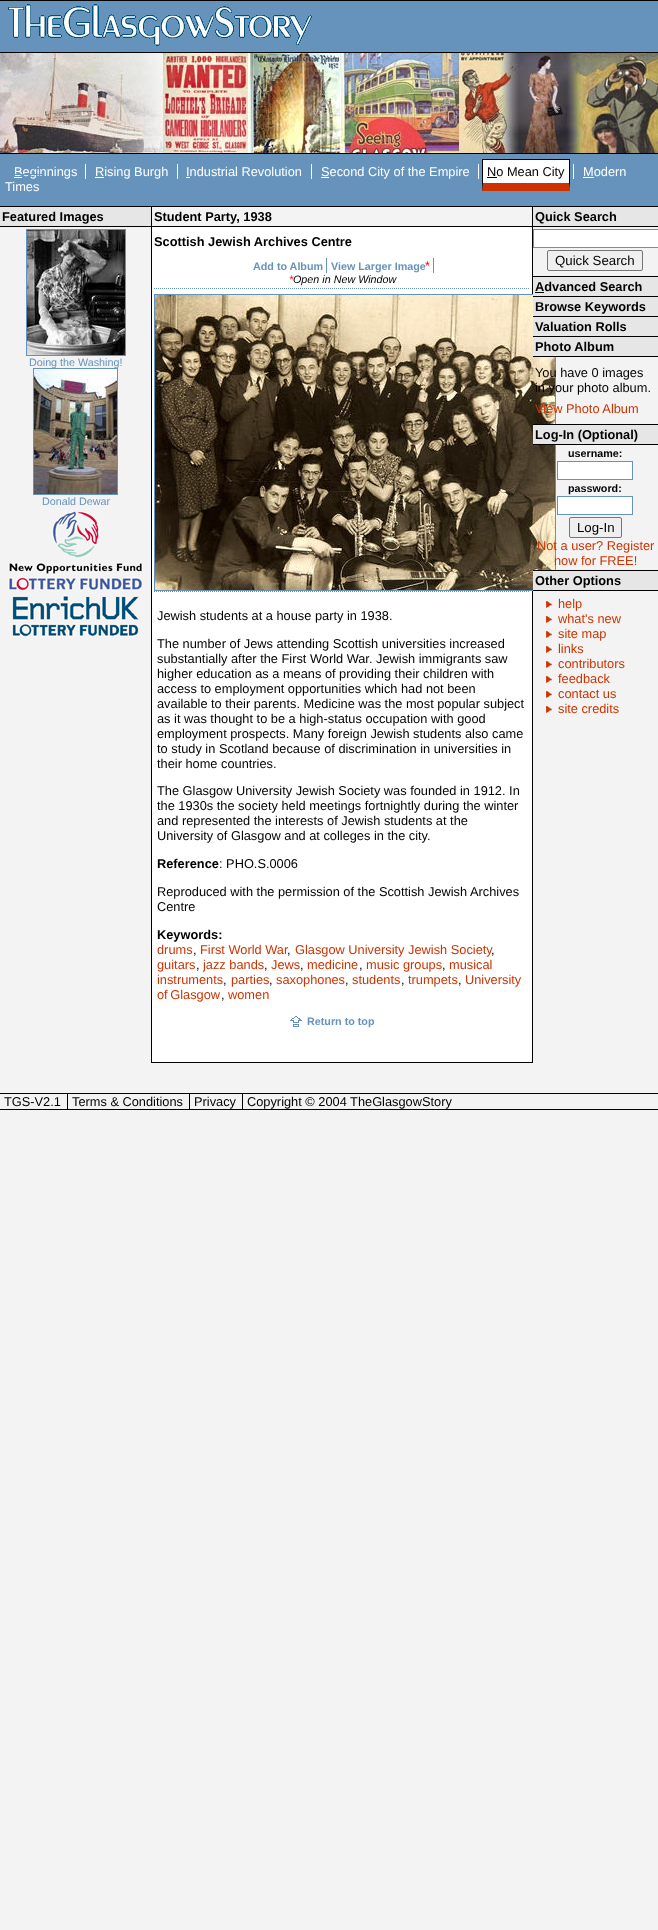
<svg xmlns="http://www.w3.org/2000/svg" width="658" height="1930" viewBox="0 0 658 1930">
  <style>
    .t1 { font: 12.8px Liberation Sans; fill: #fff; }
    .t2 { font: 12.8px Liberation Sans; fill: #000; }
    .t3 { font: bold 12.8px Liberation Sans; fill: #000; }
    .t4 { font: 10.75px Liberation Sans; fill: #6693bc; }
    .t5 { font: bold 10.75px Liberation Sans; fill: #6693bc; }
    .t6 { font: 12.8px Liberation Sans; fill: #f00; }
    .t7 { font: italic 10.75px Liberation Sans; fill: #f00; }
    .t8 { font: italic 10.75px Liberation Sans; fill: #000; }
    .t9 { font: 12.8px Liberation Sans; fill: #c30; }
    .t10 { font: 13.25px Liberation Sans; fill: #000; }
    .t11 { font: bold 10.75px Liberation Sans; fill: #000; }
  </style>
  <rect width="100%" height="100%" fill="#f3f3f3"/>
  <rect x="0" y="1" width="658" height="51" fill="#6693bc"/>
  <rect x="0" y="0" width="658" height="1" fill="#000"/>
  <image x="8" y="4" width="304" height="42" href="images/1.png"/>
  <image x="0" y="53" width="658" height="100" href="images/2.png"/>
  <rect x="0" y="52" width="658" height="1" fill="#000"/>
  <rect x="0" y="153" width="658" height="1" fill="#000"/>
  <rect x="0" y="154" width="658" height="52" fill="#6693bc"/>
  <rect x="0" y="206" width="658" height="1" fill="#000"/>
  <rect x="14" y="177" width="8" height="1" fill="#fff"/>
  <text x="14" y="176" class="t1">Beginnings</text>
  <rect x="95" y="177" width="9" height="1" fill="#fff"/>
  <text x="95" y="176" class="t1">Rising Burgh</text>
  <rect x="85" y="164" width="1" height="15" fill="#fff"/>
  <text x="186" y="176" class="t1">Industrial Revolution</text>
  <rect x="177" y="164" width="1" height="15" fill="#fff"/>
  <rect x="186" y="177" width="4" height="1" fill="#fff"/>
  <rect x="321" y="177" width="8" height="1" fill="#fff"/>
  <text x="321" y="176" class="t1">Second City of the Empire</text>
  <rect x="311" y="164" width="1" height="15" fill="#fff"/>
  <rect x="483" y="160" width="86" height="23" fill="#fff"/>
  <rect x="487" y="177" width="10" height="1" fill="#000"/>
  <text x="487" y="176" class="t2">No Mean City</text>
  <rect x="478" y="164" width="1" height="15" fill="#fff"/>
  <rect x="482" y="159" width="88" height="1" fill="#000"/>
  <path d="M497 191H482L483 183H497Z" fill="#c30"/>
  <path d="M482 191V159L483 160V183Z" fill="#000"/>
  <path d="M570 159V191L569 183V160Z" fill="#000"/>
  <path d="M570 191H497V183H569Z" fill="#c30"/>
  <text x="583" y="176" class="t1">Modern</text>
  <rect x="573" y="164" width="1" height="15" fill="#fff"/>
  <rect x="583" y="177" width="11" height="1" fill="#fff"/>
  <text x="5" y="191" class="t1">Times</text>
  <rect x="14" y="174" width="30" height="1" fill="#6693bc"/>
  <rect x="0" y="207" width="151" height="19" fill="#e6e6e6"/>
  <rect x="0" y="226" width="151" height="1" fill="#000"/>
  <text x="2" y="221" class="t3">Featured Images</text>
  <rect x="26.5" y="229.5" width="99" height="126" fill="none" stroke="#6693bc"/>
  <image x="27" y="230" width="98" height="125" href="images/3.png"/>
  <text x="29" y="366" class="t4">Doing the Washing!</text>
  <rect x="33.5" y="368.5" width="84" height="126" fill="none" stroke="#6693bc"/>
  <image x="34" y="369" width="83" height="125" href="images/4.png"/>
  <text x="42" y="505" class="t4">Donald Dewar</text>
  <image x="8" y="510" width="135" height="81" href="images/5.png"/>
  <image x="12" y="595" width="127" height="42" href="images/6.png"/>
  <rect x="152" y="227" width="380" height="835" fill="#fff"/>
  <rect x="532" y="207" width="1" height="856" fill="#000"/>
  <rect x="151" y="1062" width="382" height="1" fill="#000"/>
  <rect x="151" y="207" width="1" height="856" fill="#000"/>
  <rect x="152" y="226" width="380" height="1" fill="#000"/>
  <text x="154" y="221" class="t3">Student Party, 1938</text>
  <text x="154" y="246" class="t3">Scottish Jewish Archives Centre</text>
  <path d="M154 288.5H530" fill="none" stroke="#6693bc" stroke-dasharray="1 1"/>
  <text x="253" y="270" class="t5">Add to Album</text>
  <text x="331" y="270" class="t5">View Larger Image</text>
  <rect x="326" y="258" width="1" height="15" fill="#6693bc"/>
  <text x="425" y="270" class="t6">*</text>
  <rect x="433" y="258" width="1" height="15" fill="#6693bc"/>
  <text x="289" y="283" class="t7">*</text>
  <text x="293" y="283" class="t8">Open in New Window</text>
  <rect x="154.5" y="294.5" width="401" height="296" fill="none" stroke="#6693bc"/>
  <image x="155" y="295" width="400" height="295" href="images/7.png"/>
  <path d="M154 591.5H530" fill="none" stroke="#6693bc" stroke-dasharray="1 1"/>
  <text x="157" y="620" class="t2">Jewish students at a house party in 1938.</text>
  <text x="157" y="648" class="t2">The number of Jews attending Scottish universities increased</text>
  <text x="157" y="663" class="t2">substantially after the First World War. Jewish immigrants saw</text>
  <text x="157" y="678" class="t2">higher education as a means of providing their children with</text>
  <text x="157" y="693" class="t2">access to employment opportunities which had not been</text>
  <text x="157" y="708" class="t2">available to their parents. Medicine was the most popular subject</text>
  <text x="157" y="723" class="t2">as it was thought to be a high-status occupation with good</text>
  <text x="157" y="738" class="t2">employment prospects. Many foreign Jewish students also came</text>
  <text x="157" y="753" class="t2">to study in Scotland because of discrimination in universities in</text>
  <text x="157" y="768" class="t2">their home countries.</text>
  <text x="157" y="795" class="t2">The Glasgow University Jewish Society was founded in 1912. In</text>
  <text x="157" y="810" class="t2">the 1930s the society held meetings fortnightly during the winter</text>
  <text x="157" y="825" class="t2">and represented the interests of Jewish students at the</text>
  <text x="157" y="840" class="t2">University of Glasgow and at colleges in the city.</text>
  <text x="157" y="868" class="t3">Reference</text>
  <text x="219" y="868" class="t2">: PHO.S.0006</text>
  <text x="157" y="896" class="t2">Reproduced with the permission of the Scottish Jewish Archives</text>
  <text x="157" y="911" class="t2">Centre</text>
  <text x="157" y="939" class="t3">Keywords:</text>
  <text x="157" y="954" class="t9">drums</text>
  <text x="193" y="954" class="t2">,</text>
  <text x="200" y="954" class="t9">First World War</text>
  <text x="287" y="954" class="t2">,</text>
  <text x="295" y="954" class="t9">Glasgow University Jewish Society</text>
  <text x="491" y="954" class="t2">,</text>
  <text x="157" y="969" class="t9">guitars</text>
  <text x="196" y="969" class="t2">,</text>
  <text x="203" y="969" class="t9">jazz bands</text>
  <text x="264" y="969" class="t2">,</text>
  <text x="271" y="969" class="t9">Jews</text>
  <text x="300" y="969" class="t2">,</text>
  <text x="307" y="969" class="t9">medicine</text>
  <text x="359" y="969" class="t2">,</text>
  <text x="366" y="969" class="t9">music groups</text>
  <text x="442" y="969" class="t2">,</text>
  <text x="449" y="969" class="t9">musical</text>
  <text x="157" y="984" class="t9">instruments</text>
  <text x="223" y="984" class="t2">,</text>
  <text x="231" y="984" class="t9">parties</text>
  <text x="269" y="984" class="t2">,</text>
  <text x="276" y="984" class="t9">saxophones</text>
  <text x="345" y="984" class="t2">,</text>
  <text x="352" y="984" class="t9">students</text>
  <text x="401" y="984" class="t2">,</text>
  <text x="408" y="984" class="t9">trumpets</text>
  <text x="458" y="984" class="t2">,</text>
  <text x="465" y="984" class="t9">University</text>
  <text x="157" y="999" word-spacing="-1" class="t9">of Glasgow</text>
  <text x="221" y="999" class="t2">,</text>
  <text x="228" y="999" class="t9">women</text>
  <image x="290" y="1016" width="12" height="11" href="images/8.png"/>
  <text x="307" y="1025" class="t5">Return to top</text>
  <rect x="533" y="207" width="125" height="19" fill="#e6e6e6"/>
  <rect x="533" y="226" width="125" height="1" fill="#000"/>
  <text x="535" y="221" class="t3">Quick Search</text>
  <rect x="533.5" y="229.5" width="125" height="18" fill="#fff" stroke="#6693bc"/>
  <rect x="547.5" y="250.5" width="95" height="20" rx="1.5" fill="#efefef" stroke="#767676"/>
  <text x="555" y="265" class="t10">Quick Search</text>
  <rect x="533" y="277" width="125" height="19" fill="#e6e6e6"/>
  <rect x="533" y="276" width="125" height="1" fill="#000"/>
  <text x="535" y="291" class="t3">Advanced Search</text>
  <rect x="535" y="292" width="9" height="1" fill="#000"/>
  <rect x="533" y="297" width="125" height="19" fill="#e6e6e6"/>
  <rect x="533" y="296" width="125" height="1" fill="#000"/>
  <text x="535" y="311" class="t3">Browse Keywords</text>
  <rect x="533" y="317" width="125" height="19" fill="#e6e6e6"/>
  <rect x="533" y="316" width="125" height="1" fill="#000"/>
  <text x="535" y="331" class="t3">Valuation Rolls</text>
  <rect x="533" y="337" width="125" height="19" fill="#e6e6e6"/>
  <rect x="533" y="336" width="125" height="1" fill="#000"/>
  <rect x="533" y="356" width="125" height="1" fill="#000"/>
  <text x="535" y="351" class="t3">Photo Album</text>
  <text x="535" y="377" class="t2">You have 0 images</text>
  <text x="535" y="392" class="t2">in your photo album.</text>
  <text x="535" y="413" class="t9">View Photo Album</text>
  <rect x="533" y="425" width="125" height="19" fill="#e6e6e6"/>
  <rect x="533" y="424" width="125" height="1" fill="#000"/>
  <rect x="533" y="444" width="125" height="1" fill="#000"/>
  <text x="535" y="439" class="t3">Log-In (Optional)</text>
  <text x="568" y="457" class="t11">username:</text>
  <rect x="557.5" y="461.5" width="75" height="18" fill="#fff" stroke="#6693bc"/>
  <text x="568" y="492" class="t11">password:</text>
  <rect x="557.5" y="496.5" width="75" height="18" fill="#fff" stroke="#6693bc"/>
  <rect x="569.5" y="517.5" width="52" height="20" rx="1.5" fill="#efefef" stroke="#767676"/>
  <text x="577" y="532" class="t10">Log-In</text>
  <text x="537" y="550" class="t9">Not a user? Register</text>
  <text x="554" y="565" class="t9">now for FREE!</text>
  <rect x="533" y="571" width="125" height="19" fill="#e6e6e6"/>
  <rect x="533" y="570" width="125" height="1" fill="#000"/>
  <rect x="533" y="590" width="125" height="1" fill="#000"/>
  <text x="535" y="585" class="t3">Other Options</text>
  <image x="546" y="601" width="6" height="7" href="images/9.png"/>
  <text x="558" y="608" class="t9">help</text>
  <image x="546" y="616" width="6" height="7" href="images/9.png"/>
  <text x="558" y="623" class="t9">what's new</text>
  <image x="546" y="631" width="6" height="7" href="images/9.png"/>
  <text x="558" y="638" class="t9">site map</text>
  <image x="546" y="646" width="6" height="7" href="images/9.png"/>
  <text x="558" y="653" class="t9">links</text>
  <image x="546" y="661" width="6" height="7" href="images/9.png"/>
  <text x="558" y="668" class="t9">contributors</text>
  <image x="546" y="676" width="6" height="7" href="images/9.png"/>
  <text x="558" y="683" class="t9">feedback</text>
  <image x="546" y="691" width="6" height="7" href="images/9.png"/>
  <text x="558" y="698" class="t9">contact us</text>
  <image x="546" y="706" width="6" height="7" href="images/9.png"/>
  <text x="558" y="713" class="t9">site credits</text>
  <rect x="0" y="1093" width="658" height="1" fill="#000"/>
  <rect x="0" y="1109" width="658" height="1" fill="#000"/>
  <text x="4" y="1106" class="t2">TGS-V2.1</text>
  <text x="72" y="1106" class="t2">Terms &amp; Conditions</text>
  <rect x="67" y="1094" width="1" height="15" fill="#000"/>
  <text x="194" y="1106" class="t2">Privacy</text>
  <rect x="189" y="1094" width="1" height="15" fill="#000"/>
  <text x="247" y="1106" class="t2">Copyright © 2004 TheGlasgowStory</text>
  <rect x="242" y="1094" width="1" height="15" fill="#000"/>
</svg>
